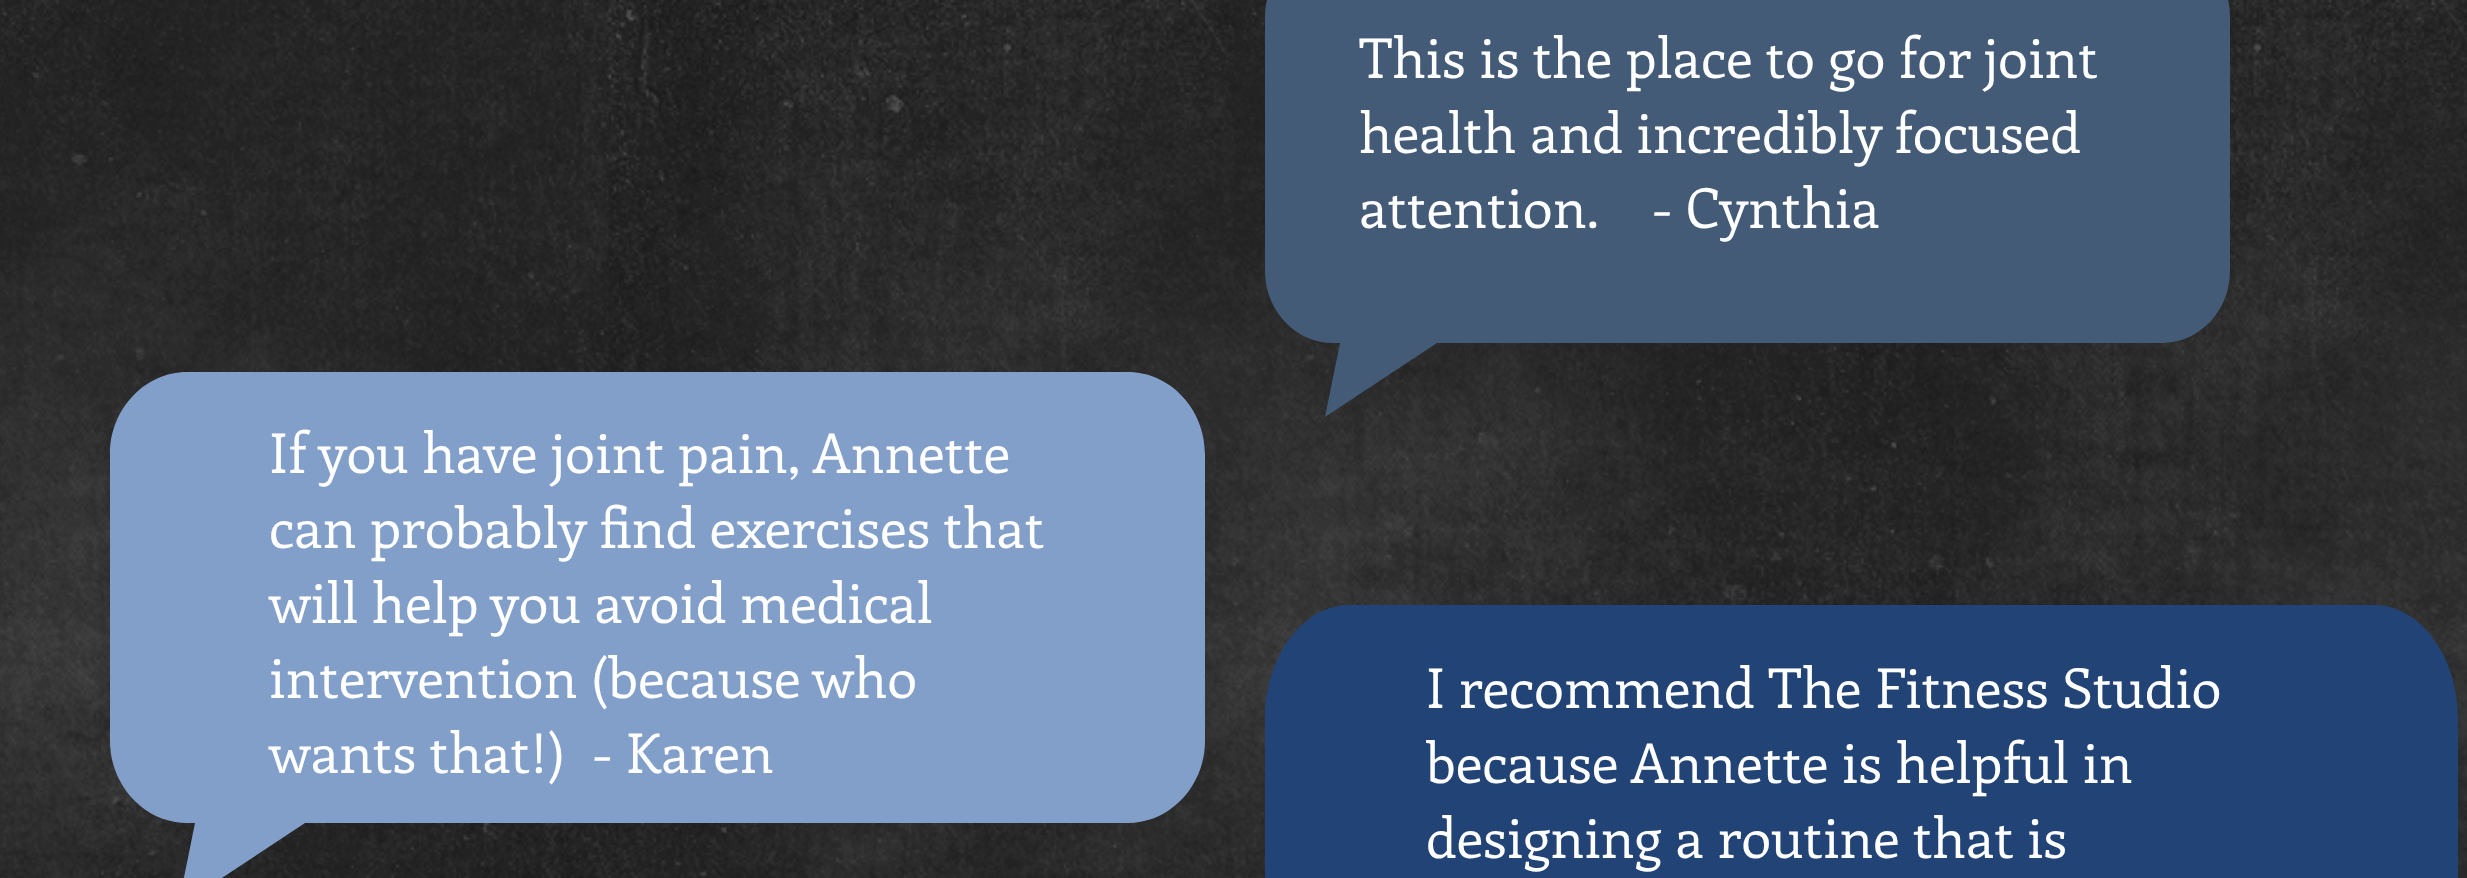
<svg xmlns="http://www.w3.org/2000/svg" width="2467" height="878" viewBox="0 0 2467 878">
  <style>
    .t1 { font: 55px Enriqueta; fill: #fff; }
  </style>
  <rect width="100%" height="100%" fill="#1b1b1b"/>
  <image x="0" y="0" width="2467" height="878" href="images/1.png"/>
  <path d="M1333-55H2162C2200-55 2230-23 2230 17V271C2230 310 2200 343 2162 343H1437L1325 417L1340 343H1333C1295 343 1265 310 1265 271V17C1265-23 1295-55 1333-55Z" fill="#445b77"/>
  <text x="1359" y="78" class="t1">This is the place to go for joint</text>
  <text x="1359" y="153" class="t1">health and incredibly focused</text>
  <text x="1359" y="228" class="t1" xml:space="preserve">attention.    - Cynthia</text>
  <path d="M187 372H1128C1170 372 1205 409 1205 454V741C1205 786 1170 823 1128 823H305L178 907L195 823H187C145 823 110 786 110 741V454C110 409 145 372 187 372Z" fill="#829fca"/>
  <text x="269" y="473" class="t1">If you have joint pain, Annette</text>
  <text x="269" y="548" class="t1">can probably find exercises that</text>
  <text x="269" y="623" class="t1">will help you avoid medical</text>
  <text x="269" y="698" class="t1">intervention (because who</text>
  <text x="269" y="773" class="t1" xml:space="preserve">wants that!)  - Karen</text>
  <path d="M1349 605H2374C2420 605 2458 656 2458 719V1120C2458 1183 2420 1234 2374 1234H1478L1339 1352L1358 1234H1349C1303 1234 1265 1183 1265 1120V719C1265 656 1303 605 1349 605Z" fill="#224375"/>
  <text x="1426" y="708" class="t1">I recommend The Fitness Studio</text>
  <text x="1426" y="783" class="t1">because Annette is helpful in</text>
  <text x="1426" y="858" class="t1">designing a routine that is</text>
</svg>
